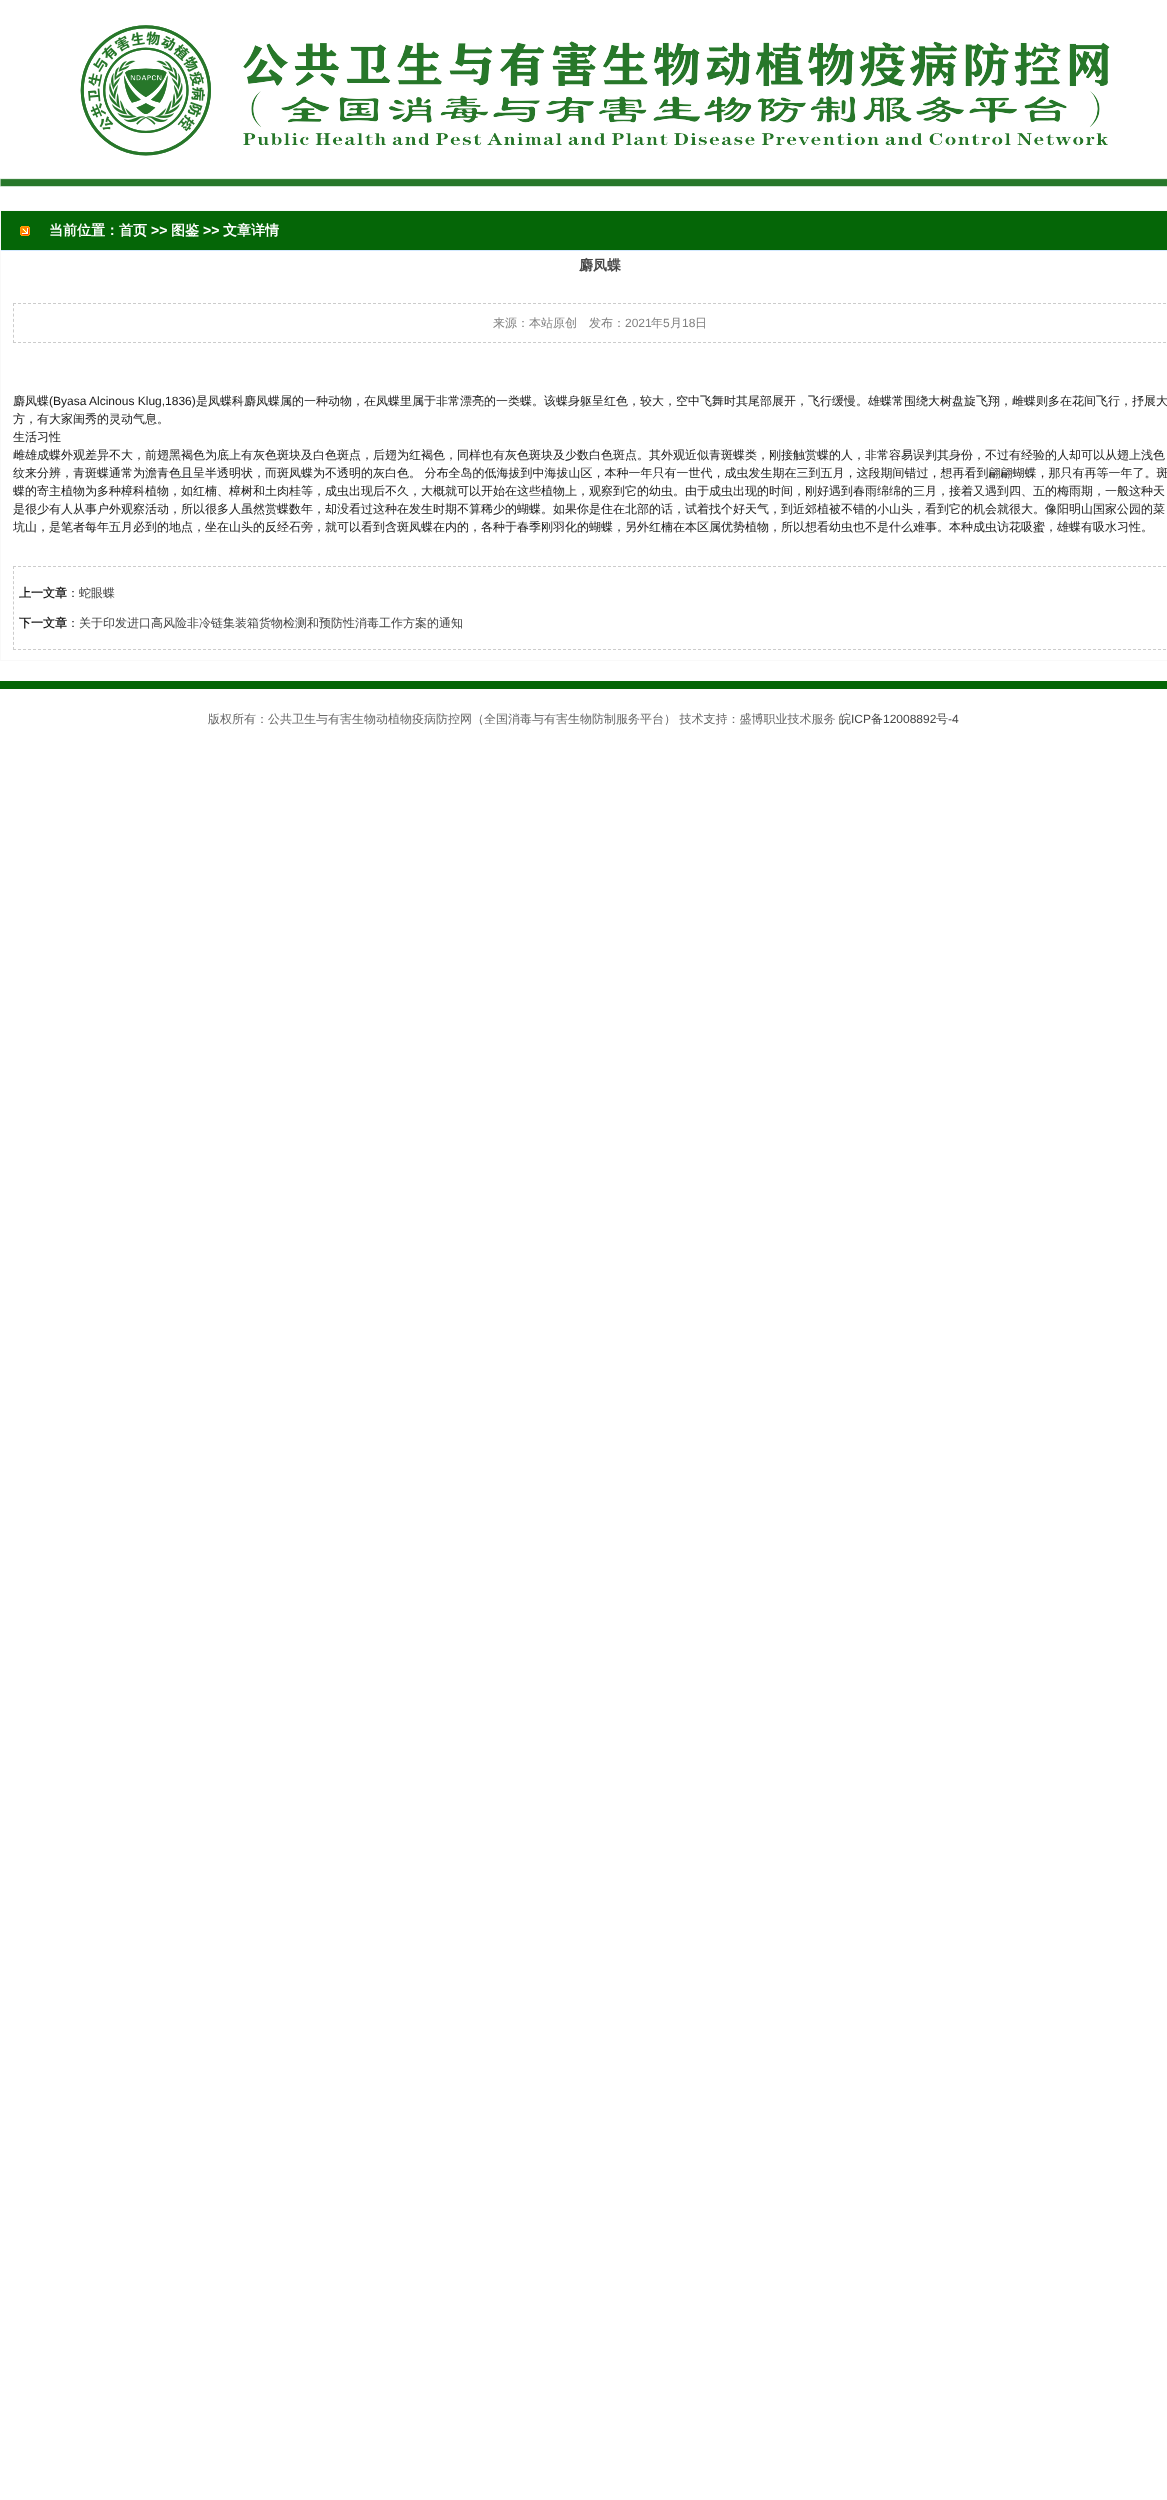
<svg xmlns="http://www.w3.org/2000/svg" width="1167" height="2500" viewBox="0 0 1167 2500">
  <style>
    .t1 { font: bold 14px WenQuanYi Zen Hei; fill: #fff; }
    .t2 { font: bold 14px Liberation Sans; fill: #fff; }
    .t3 { font: bold 14px WenQuanYi Zen Hei; fill: #444; }
    .t4 { font: 500 12px WenQuanYi Zen Hei; fill: #808080; }
    .t5 { font: 12px Liberation Sans; fill: #808080; }
    .t6 { font: 500 12px WenQuanYi Zen Hei; fill: #191919; }
    .t7 { font: 12px Liberation Sans; fill: #191919; }
    .t8 { font: bold 12px WenQuanYi Zen Hei; fill: #191919; }
    .t9 { font: 500 12px WenQuanYi Zen Hei; fill: #444; }
    .t10 { font: 500 12px WenQuanYi Zen Hei; fill: #666; }
    .t11 { font: 12px Liberation Sans; fill: #444; }
  </style>
  <rect width="100%" height="100%" fill="#fff"/>
  <image x="0" y="25" width="1167" height="162" href="images/1.png"/>
  <rect x="0.5" y="210.5" width="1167" height="450" fill="none" stroke="#f9f9f9"/>
  <rect x="1" y="211" width="1166" height="39" fill="#056607"/>
  <rect x="1" y="250" width="1166" height="1" fill="#d3e9ff"/>
  <image x="20" y="226" width="10" height="10" href="images/2.png"/>
  <text x="49" y="235" class="t1">当前位置：首页</text>
  <text x="151" y="235" class="t2">&gt;&gt;</text>
  <text x="171" y="235" class="t1">图鉴</text>
  <text x="203" y="235" class="t2">&gt;&gt;</text>
  <text x="223" y="235" class="t1">文章详情</text>
  <text x="579" y="270" class="t3">麝凤蝶</text>
  <path d="M13 303.5H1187" fill="none" stroke="#ccc" stroke-dasharray="3 2"/>
  <path d="M13 342.5H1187" fill="none" stroke="#ccc" stroke-dasharray="3 2"/>
  <path d="M13.5 303V343" fill="none" stroke="#ccc" stroke-dasharray="3 2.29"/>
  <text x="493" y="327" class="t4">来源：本站原创　发布：</text>
  <text x="625" y="327" class="t5">2021</text>
  <text x="651" y="327" class="t4">年</text>
  <text x="663" y="327" class="t5">5</text>
  <text x="670" y="327" class="t4">月</text>
  <text x="682" y="327" class="t5">18</text>
  <text x="695" y="327" class="t4">日</text>
  <text x="13" y="405" class="t6">麝凤蝶</text>
  <text x="49" y="405" class="t7">(Byasa Alcinous Klug,1836)</text>
  <text x="196" y="405" class="t6">是凤蝶科麝凤蝶属的一种动物，在凤蝶里属于非常漂亮的一类蝶。该蝶身躯呈红色，较大，空中飞舞时其尾部展开，飞行缓慢。雄蝶常围绕大树盘旋飞翔，雌蝶则多在花间飞行，抒展大</text>
  <text x="13" y="423" class="t6">方，有大家闺秀的灵动气息。</text>
  <text x="13" y="441" class="t6">生活习性</text>
  <text x="13" y="459" class="t6">雌雄成蝶外观差异不大，前翅黑褐色为底上有灰色斑块及白色斑点，后翅为红褐色，同样也有灰色斑块及少数白色斑点。其外观近似青斑蝶类，刚接触赏蝶的人，非常容易误判其身份，不过有经验的人却可以从翅上浅色</text>
  <text x="13" y="477" class="t6">纹来分辨，青斑蝶通常为澹青色且呈半透明状，而斑凤蝶为不透明的灰白色。 分布全岛的低海拔到中海拔山区，本种一年只有一世代，成虫发生期在三到五月，这段期间错过，想再看到翩翩蝴蝶，那只有再等一年了。斑</text>
  <text x="13" y="495" class="t6">蝶的寄主植物为多种樟科植物，如红楠、樟树和土肉桂等，成虫出现后不久，大概就可以开始在这些植物上，观察到它的幼虫。由于成虫出现的时间，刚好遇到春雨绵绵的三月，接着又遇到四、五的梅雨期，一般这种天</text>
  <text x="13" y="513" class="t6">是很少有人从事户外观察活动，所以很多人虽然赏蝶数年，却没看过这种在发生时期不算稀少的蝴蝶。如果你是住在北部的话，试着找个好天气，到近郊植被不错的小山头，看到它的机会就很大。像阳明山国家公园的菜</text>
  <text x="13" y="531" class="t6">坑山，是笔者每年五月必到的地点，坐在山头的反经石旁，就可以看到含斑凤蝶在内的，各种于春季刚羽化的蝴蝶，另外红楠在本区属优势植物，所以想看幼虫也不是什么难事。本种成虫访花吸蜜，雄蝶有吸水习性。</text>
  <path d="M13 566.5H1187" fill="none" stroke="#ccc" stroke-dasharray="3 2"/>
  <path d="M13 649.5H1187" fill="none" stroke="#ccc" stroke-dasharray="3 2"/>
  <path d="M13.5 566V650" fill="none" stroke="#ccc" stroke-dasharray="3 2.06"/>
  <text x="19" y="597" class="t8">上一文章</text>
  <text x="67" y="597" class="t6">：</text>
  <text x="79" y="597" class="t9">蛇眼蝶</text>
  <text x="19" y="627" class="t8">下一文章</text>
  <text x="67" y="627" class="t6">：</text>
  <text x="79" y="627" class="t9">关于印发进口高风险非冷链集装箱货物检测和预防性消毒工作方案的通知</text>
  <rect x="0" y="681" width="1167" height="8" fill="#056607"/>
  <text x="208" y="723" class="t10">版权所有：公共卫生与有害生物动植物疫病防控网（全国消毒与有害生物防制服务平台） 技术支持：盛博职业技术服务</text>
  <text x="839" y="723" class="t9">皖</text>
  <text x="851" y="723" class="t11">ICP</text>
  <text x="871" y="723" class="t9">备</text>
  <text x="883" y="723" class="t11">12008892</text>
  <text x="936" y="723" class="t9">号</text>
  <text x="948" y="723" class="t11">-4</text>
</svg>
